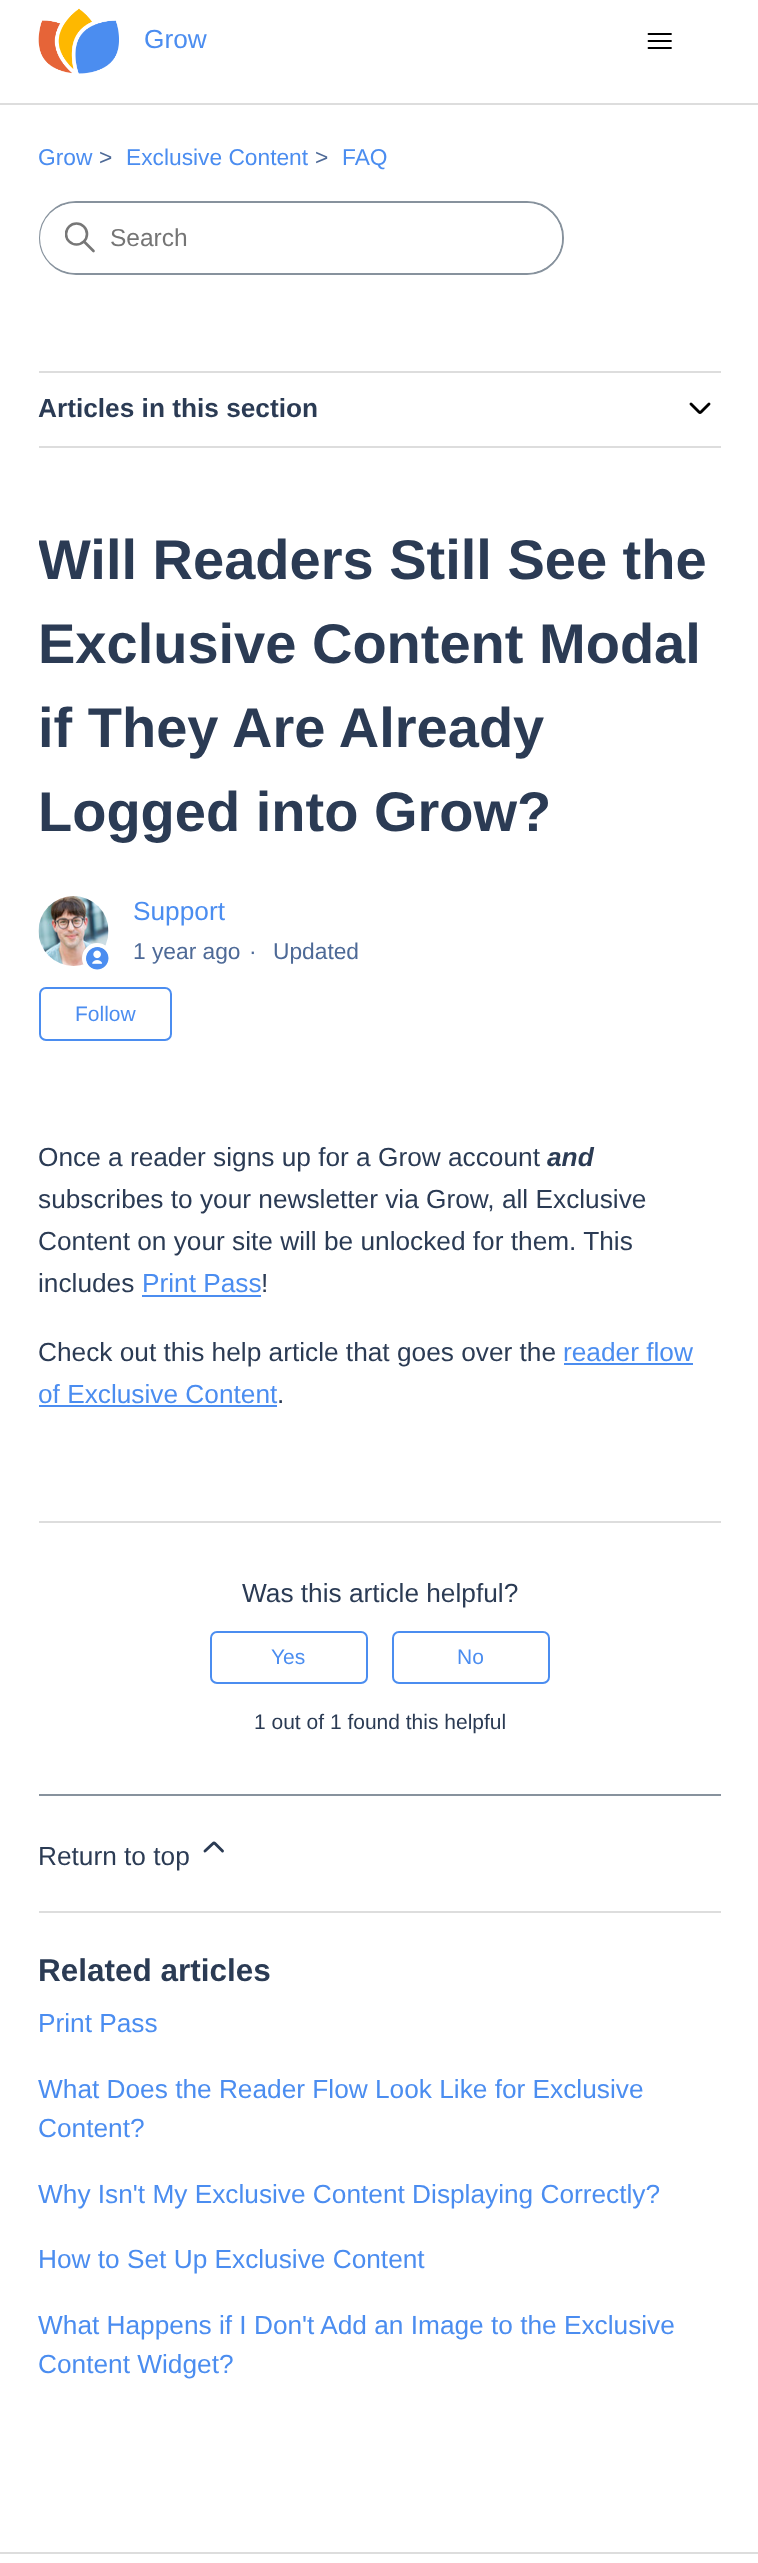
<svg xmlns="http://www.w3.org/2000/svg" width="758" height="2563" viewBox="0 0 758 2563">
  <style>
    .t1 { font: 26.25px Liberation Sans; fill: #4b8df0; }
    .t2 { font: 22.75px Liberation Sans; fill: #4b8df0; }
    .t3 { font: 22.75px Liberation Sans; fill: #4e6a97; }
    .t4 { font: 24.5px Liberation Sans; fill: #757575; }
    .t5 { font: bold 26.25px Liberation Sans; fill: #2b3b54; }
    .t6 { font: bold 56px Liberation Sans; fill: #2b3b54; }
    .t7 { font: 21px Liberation Sans; fill: #4b8df0; }
    .t8 { font: 26.25px Liberation Sans; fill: #2b3b54; }
    .t9 { font: italic bold 26.25px Liberation Sans; fill: #2b3b54; }
    .t10 { font: 21px Liberation Sans; fill: #2b3b54; }
    .t11 { font: bold 31.5px Liberation Sans; fill: #2b3b54; }
  </style>
  <defs>
    <clipPath id="clip1"><rect x="65" y="222" width="31" height="32"/></clipPath>
    <clipPath id="clip2"><rect x="39" y="518" width="682" height="336"/></clipPath>
  </defs>
  <rect width="100%" height="100%" fill="#fff"/>
  <image x="38" y="8" width="81" height="66" href="images/1.png"/>
  <text x="144" y="48" class="t1">Grow</text>
  <path d="M648.5 34H671M648.5 41H671M648.5 48H671" fill="none" stroke="#000" stroke-width="1.8" stroke-linecap="round"/>
  <rect x="0" y="103" width="758" height="2" fill="#ddd"/>
  <text x="38" y="165" class="t2">Grow</text>
  <text x="99" y="165" class="t3">&gt;</text>
  <text x="126" y="165" class="t2">Exclusive Content</text>
  <text x="315" y="165" class="t3">&gt;</text>
  <text x="342" y="165" class="t2">FAQ</text>
  <rect x="40" y="202" width="523" height="72" rx="36" fill="none" stroke="#87929d" stroke-width="2"/>
  <rect x="40" y="203" width="522" height="70" rx="35" fill="#fff"/>
  <g clip-path="url(#clip1)">
    <circle cx="76.5" cy="234" r="10.5" fill="none" stroke="#777" stroke-width="2.6"/>
  </g>
  <path d="M93.5 251L84.5 242" fill="none" stroke="#777" stroke-width="2.6" stroke-linecap="round"/>
  <text x="110" y="246" class="t4">Search</text>
  <rect x="39" y="371" width="682" height="2" fill="#ddd"/>
  <rect x="39" y="446" width="682" height="2" fill="#ddd"/>
  <text x="38" y="417" class="t5">Articles in this section</text>
  <path d="M691 404L699 412C699.5 412.5 700.5 412.5 701 412L709 404" fill="none" stroke="#000" stroke-width="2.9" stroke-linecap="round"/>
  <g clip-path="url(#clip2)">
    <text x="38" y="579" class="t6">Will Readers Still See the</text>
  </g>
  <text x="38" y="663" class="t6">Exclusive Content Modal</text>
  <text x="38" y="747" class="t6">if They Are Already</text>
  <text x="38" y="831" class="t6">Logged into Grow?</text>
  <image x="38" y="896" width="71" height="70" href="images/2.png"/>
  <circle cx="97" cy="958" r="13" fill="#fff" stroke="#fff" stroke-width="4"/>
  <image x="86" y="947" width="23" height="23" href="images/3.png"/>
  <text x="133" y="920" class="t1">Support</text>
  <text x="133" y="959" class="t3">1 year ago</text>
  <text x="249" y="959" class="t3">·</text>
  <text x="273" y="959" class="t3">Updated</text>
  <rect x="40" y="988" width="131" height="52" rx="6" fill="none" stroke="#4b8df0" stroke-width="2"/>
  <text x="75" y="1021" class="t7">Follow</text>
  <text x="38" y="1166" class="t8">Once a reader signs up for a Grow account</text>
  <text x="547" y="1166" class="t9">and</text>
  <text x="38" y="1208" class="t8">subscribes to your newsletter via Grow, all Exclusive</text>
  <text x="38" y="1250" class="t8">Content on your site will be unlocked for them. This</text>
  <text x="38" y="1292" class="t8">includes</text>
  <text x="142" y="1292" class="t1">Print Pass</text>
  <rect x="142" y="1295" width="119" height="2" fill="#4b8df0"/>
  <text x="261" y="1292" class="t8">!</text>
  <text x="38" y="1361" class="t8">Check out this help article that goes over the</text>
  <text x="563" y="1361" class="t1">reader flow</text>
  <rect x="564" y="1363" width="129" height="2" fill="#4b8df0"/>
  <text x="38" y="1403" class="t1">of Exclusive Content</text>
  <rect x="39" y="1405" width="238" height="2" fill="#4b8df0"/>
  <text x="277" y="1403" class="t8">.</text>
  <rect x="39" y="1521" width="682" height="2" fill="#ddd"/>
  <text x="242" y="1602" class="t8">Was this article helpful?</text>
  <rect x="211" y="1632" width="156" height="51" rx="6" fill="none" stroke="#4b8df0" stroke-width="2"/>
  <text x="271" y="1664" class="t7">Yes</text>
  <rect x="393" y="1632" width="156" height="51" rx="6" fill="none" stroke="#4b8df0" stroke-width="2"/>
  <text x="457" y="1664" class="t7">No</text>
  <text x="254" y="1729" class="t10">1 out of 1 found this helpful</text>
  <rect x="39" y="1794" width="682" height="2" fill="#87929d"/>
  <text x="38" y="1865" class="t8">Return to top</text>
  <path d="M222.5 1851L215 1843.5C214.5 1843 213.5 1843 213 1843.5L205 1851" fill="none" stroke="#2b3b54" stroke-width="2.9" stroke-linecap="round"/>
  <rect x="39" y="1911" width="682" height="2" fill="#ddd"/>
  <text x="38" y="1981" class="t11">Related articles</text>
  <text x="38" y="2032" class="t1">Print Pass</text>
  <text x="38" y="2098" class="t1">What Does the Reader Flow Look Like for Exclusive</text>
  <text x="38" y="2137" class="t1">Content?</text>
  <text x="38" y="2203" class="t1">Why Isn't My Exclusive Content Displaying Correctly?</text>
  <text x="38" y="2268" class="t1">How to Set Up Exclusive Content</text>
  <text x="38" y="2334" class="t1">What Happens if I Don't Add an Image to the Exclusive</text>
  <text x="38" y="2373" class="t1">Content Widget?</text>
  <rect x="0" y="2552" width="758" height="2" fill="#ddd"/>
</svg>
